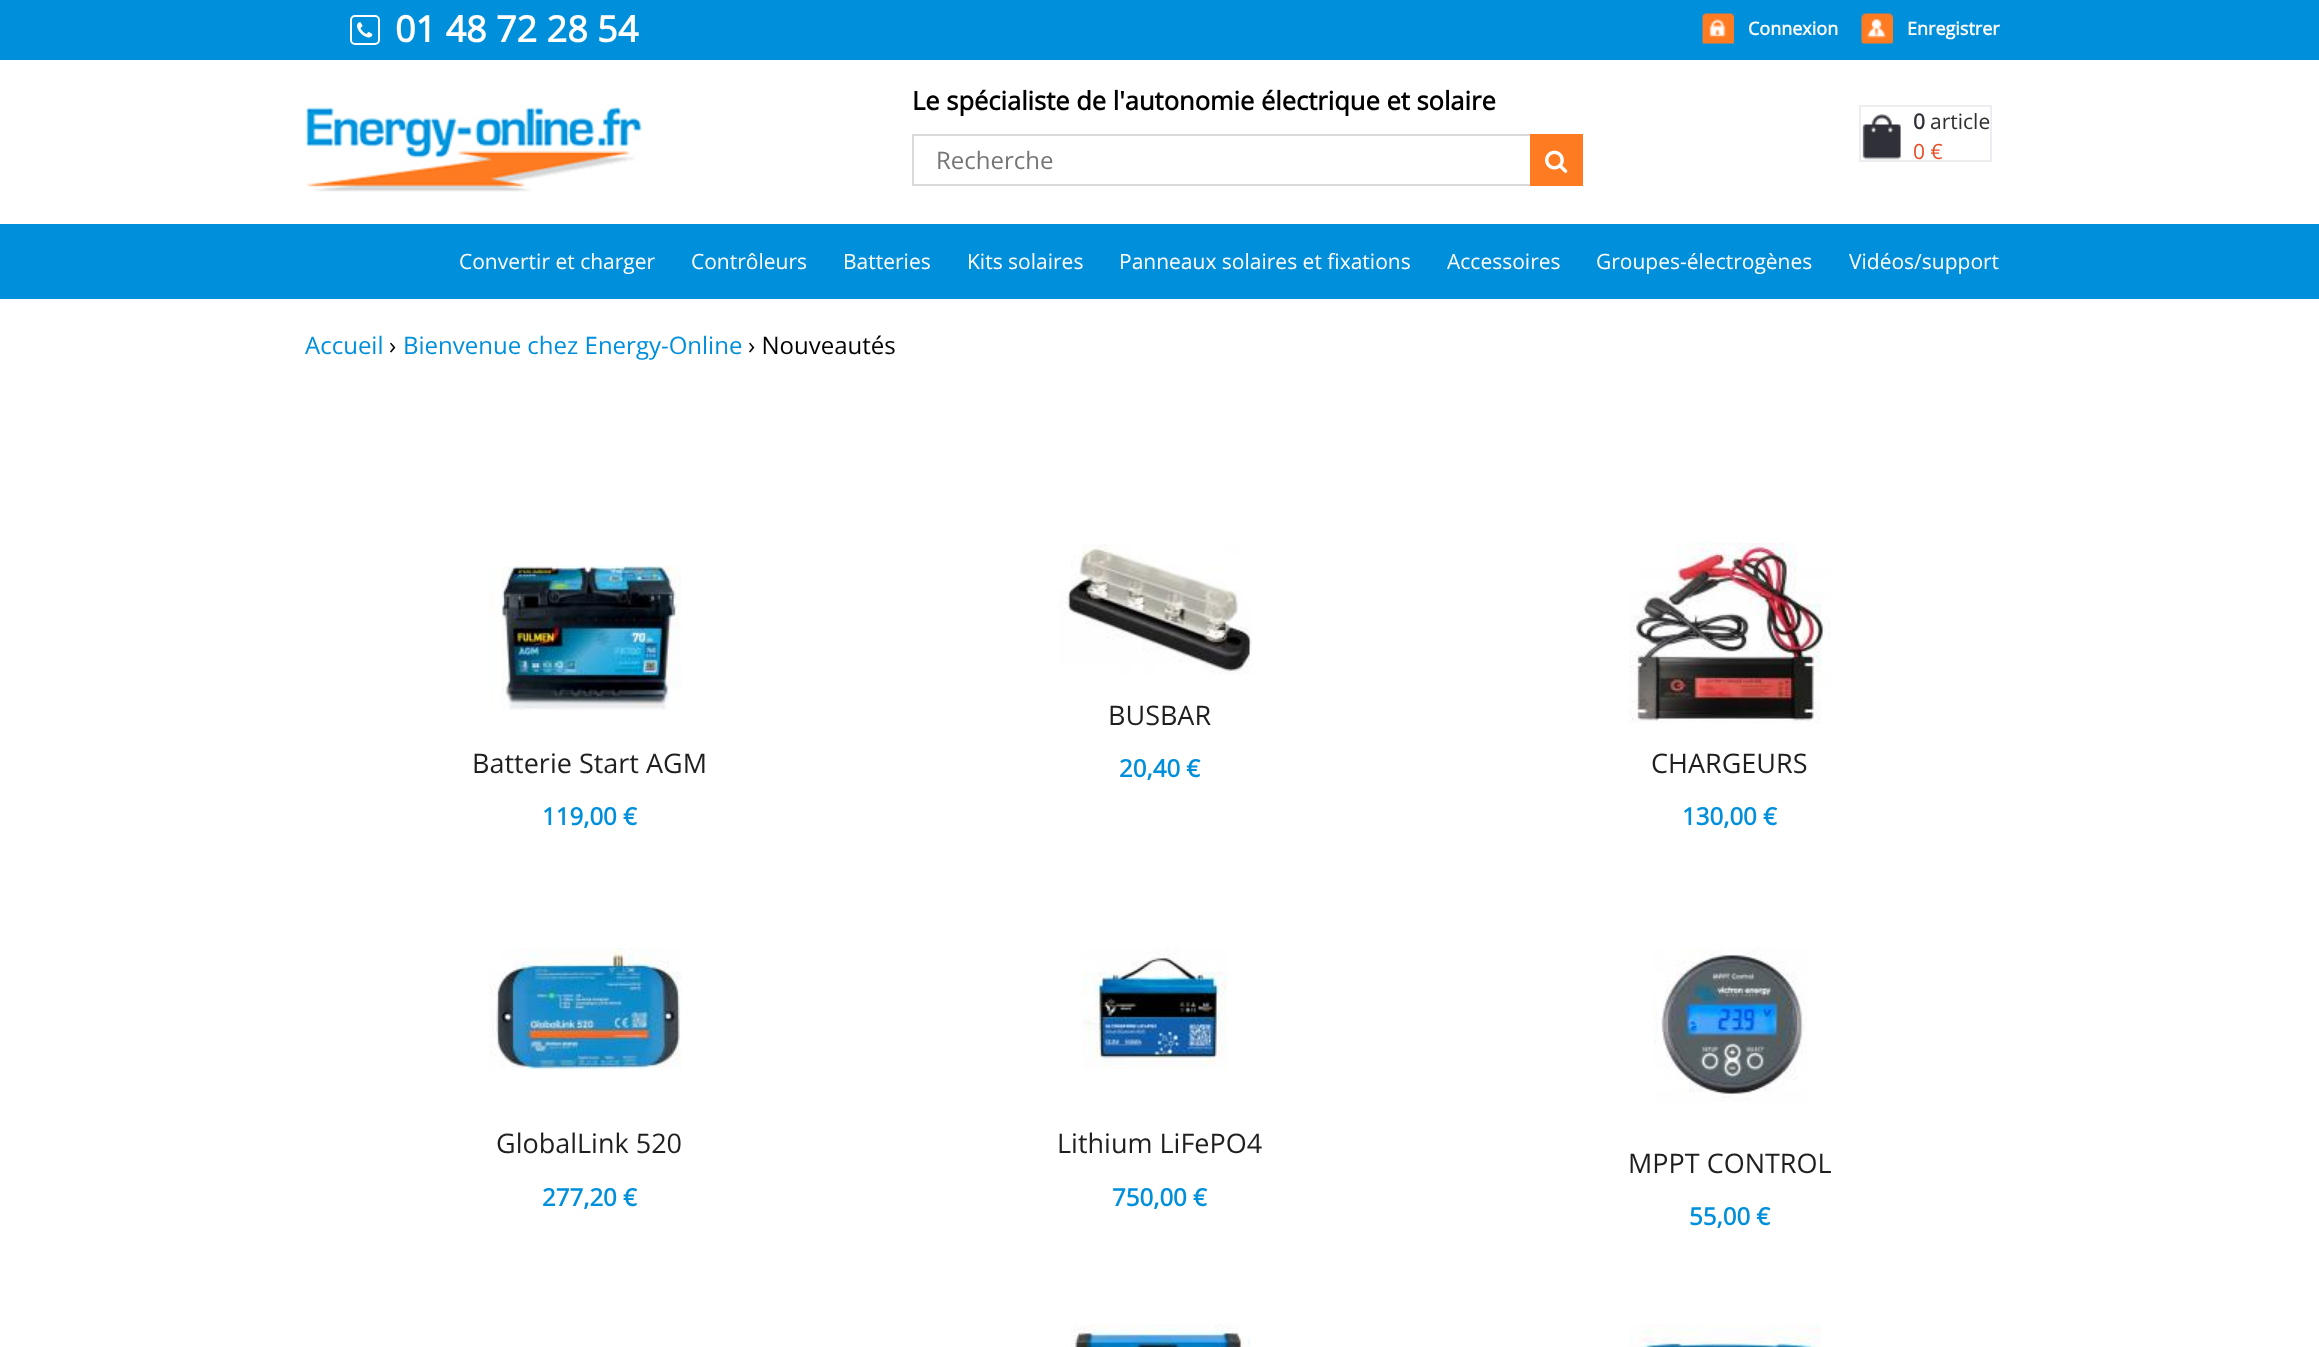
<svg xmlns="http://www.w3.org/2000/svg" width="2319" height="1347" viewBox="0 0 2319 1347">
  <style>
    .t1 { font: bold 36px Open Sans; fill: #fff; }
    .t2 { font: bold 18px Open Sans; fill: #fff; }
    .t3 { font: bold 25.5px Open Sans; fill: #000; }
    .t4 { font: 24px Open Sans; fill: #757575; }
    .t5 { font: bold 21px Open Sans; fill: #303038; }
    .t6 { font: 21px Open Sans; fill: #2f2f2f; }
    .t7 { font: 21px Open Sans; fill: #e64c26; }
    .t8 { font: 21px Open Sans; fill: #fff; }
    .t9 { font: 24px Open Sans; fill: #008fdb; }
    .t10 { font: 24px Open Sans; fill: #000; }
    .t11 { font: 27px Open Sans; fill: #1f1f1f; }
    .t12 { font: bold 24px Open Sans; fill: #008fdb; }
  </style>
  <rect width="100%" height="100%" fill="#fff"/>
  <rect x="0" y="0" width="2319" height="60" fill="#008fdb"/>
  <rect x="351" y="16" width="28" height="28" rx="4" fill="none" stroke="#fff" stroke-width="2"/>
  <image x="357" y="22" width="16" height="16" href="images/1.png"/>
  <text x="395" y="42" class="t1">01 48 72 28 54</text>
  <image x="1702" y="13" width="32" height="31" href="images/2.png"/>
  <text x="1748" y="35" class="t2">Connexion</text>
  <image x="1861" y="13" width="32" height="31" href="images/3.png"/>
  <text x="1907" y="35" class="t2">Enregistrer</text>
  <image x="305" y="106" width="337" height="86" href="images/4.png"/>
  <text x="912" y="110" class="t3">Le spécialiste de l'autonomie électrique et solaire</text>
  <rect x="913" y="135" width="669" height="50" fill="none" stroke="#dadada" stroke-width="2"/>
  <text x="936" y="169" class="t4">Recherche</text>
  <rect x="1530" y="134" width="53" height="52" fill="#fe7b21"/>
  <image x="1545" y="150" width="23" height="23" href="images/5.png"/>
  <image x="1862" y="114" width="39" height="46" href="images/6.png"/>
  <rect x="1860" y="106" width="131" height="55" fill="none" stroke="#ededf1" stroke-width="2"/>
  <text x="1913" y="129" class="t5">0</text>
  <text x="1930" y="129" class="t6">article</text>
  <text x="1913" y="159" class="t7">0 €</text>
  <rect x="0" y="224" width="2319" height="75" fill="#008fdb"/>
  <text x="459" y="269" class="t8">Convertir et charger</text>
  <text x="691" y="269" class="t8">Contrôleurs</text>
  <text x="843" y="269" class="t8">Batteries</text>
  <text x="967" y="269" class="t8">Kits solaires</text>
  <text x="1119" y="269" class="t8">Panneaux solaires et fixations</text>
  <text x="1447" y="269" class="t8">Accessoires</text>
  <text x="1596" y="269" class="t8">Groupes-électrogènes</text>
  <text x="1849" y="269" class="t8">Vidéos/support</text>
  <text x="305" y="354" class="t9">Accueil</text>
  <text x="389" y="354" class="t10">›</text>
  <text x="403" y="354" class="t9">Bienvenue chez Energy-Online</text>
  <text x="748" y="354" class="t10">› Nouveautés</text>
  <image x="1059" y="544" width="193" height="131" href="images/7.png"/>
  <text x="1108" y="725" class="t11">BUSBAR</text>
  <text x="1119" y="777" class="t12">20,40 €</text>
  <image x="489" y="565" width="192" height="146" href="images/8.png"/>
  <text x="472" y="773" class="t11">Batterie Start AGM</text>
  <text x="542" y="825" class="t12">119,00 €</text>
  <image x="1629" y="543" width="201" height="180" href="images/9.png"/>
  <text x="1651" y="773" class="t11">CHARGEURS</text>
  <text x="1682" y="825" class="t12">130,00 €</text>
  <image x="489" y="948" width="193" height="122" href="images/10.png"/>
  <text x="496" y="1153" class="t11">GlobalLink 520</text>
  <text x="542" y="1206" class="t12">277,20 €</text>
  <image x="1082" y="948" width="146" height="121" href="images/11.png"/>
  <text x="1057" y="1153" class="t11">Lithium LiFePO4</text>
  <text x="1112" y="1206" class="t12">750,00 €</text>
  <image x="1653" y="948" width="154" height="154" href="images/12.png"/>
  <text x="1628" y="1173" class="t11">MPPT CONTROL</text>
  <text x="1689" y="1225" class="t12">55,00 €</text>
  <image x="1071" y="1324" width="180" height="23" href="images/13.png"/>
  <image x="1629" y="1324" width="192" height="23" href="images/14.png"/>
</svg>
